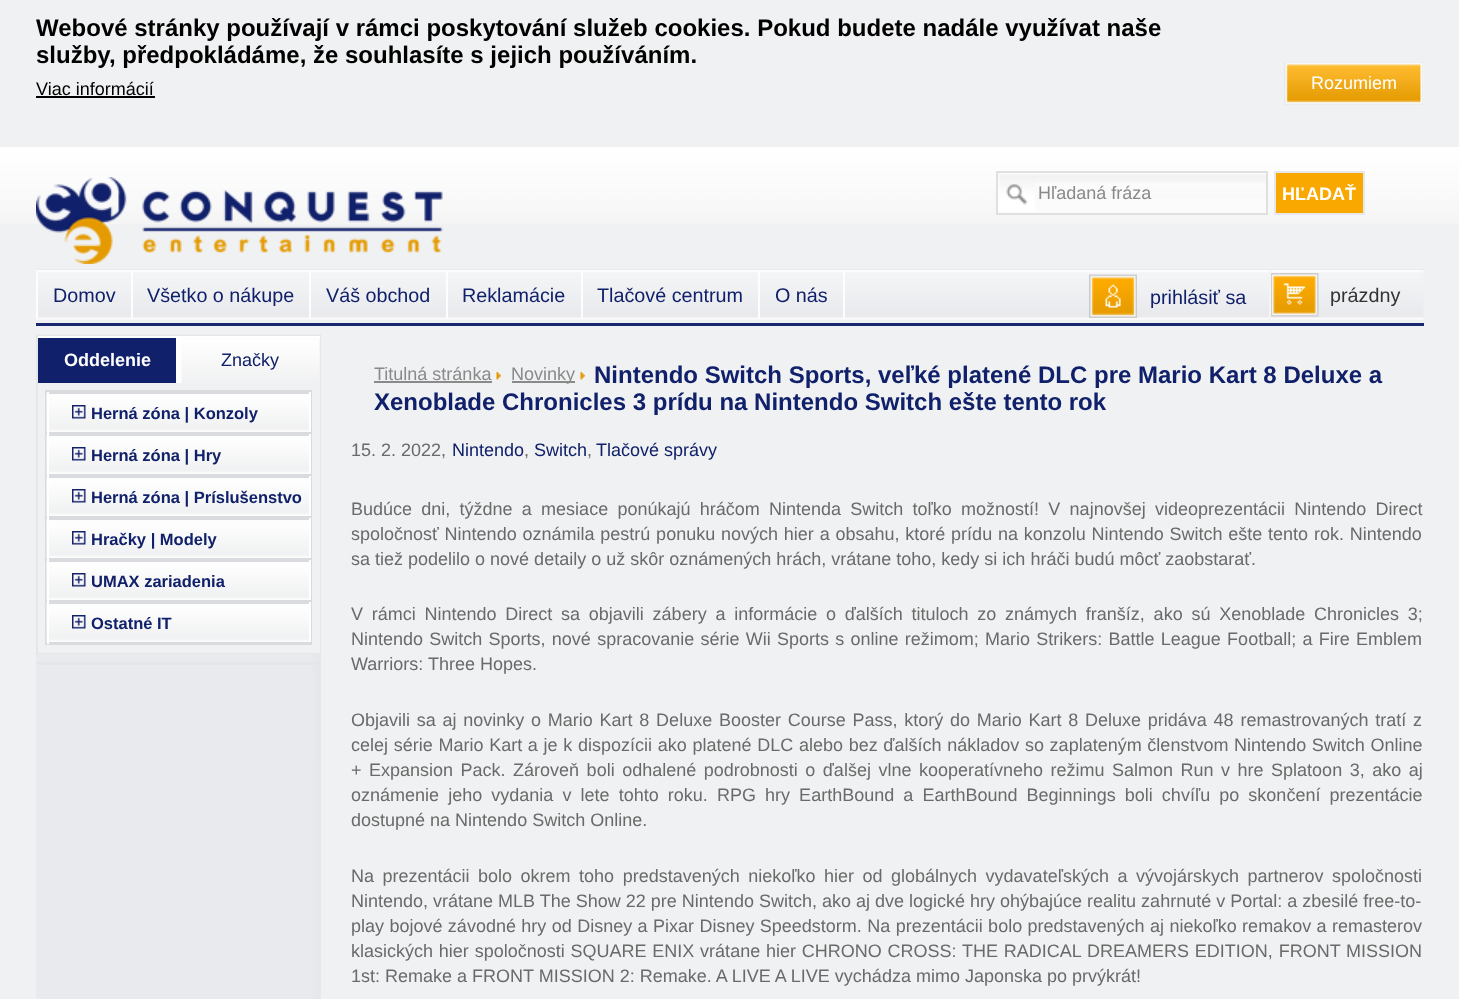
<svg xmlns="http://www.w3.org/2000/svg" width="1459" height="999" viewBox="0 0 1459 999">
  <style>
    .t1 { font: bold 24px Liberation Sans; fill: #000; }
    .t2 { font: 18px Liberation Sans; fill: #000; }
    .t3 { font: 18px Liberation Sans; fill: #fff; }
    .t4 { font: 18px Liberation Sans; fill: #8a8a8a; }
    .t5 { font: bold 18px Liberation Sans; fill: #fff; }
    .t6 { font: 19.75px Liberation Sans; fill: #10206a; }
    .t7 { font: 19.75px Liberation Sans; fill: #333; }
    .t8 { font: 18px Liberation Sans; fill: #10206a; }
    .t9 { font: bold 16.5px Liberation Sans; fill: #10206a; }
    .t10 { font: bold 24px Liberation Sans; fill: #10206a; }
    .t11 { font: 18px Liberation Sans; fill: #6a6a6a; }
  </style>
  <rect width="100%" height="100%" fill="#f0f1f2"/>
  <image x="0" y="147" width="1459" height="77" href="images/1.png"/>
  <text x="36" y="36" class="t1">Webové stránky používají v rámci poskytování služeb cookies. Pokud budete nadále využívat naše</text>
  <text x="36" y="63" class="t1">služby, předpokládáme, že souhlasíte s jejich používáním.</text>
  <text x="36" y="95" class="t2">Viac informácií</text>
  <rect x="36" y="96" width="119" height="2" fill="#000"/>
  <rect x="1423" y="62" width="1" height="43" fill="#fff"/>
  <image x="1284" y="62" width="140" height="43" href="images/2.png"/>
  <text x="1311" y="89" class="t3">Rozumiem</text>
  <rect x="36" y="269" width="1388" height="2" fill="#e9eaec"/>
  <image x="36" y="177" width="407" height="87" href="images/3.png"/>
  <image x="998" y="174" width="37" height="39" href="images/4.png"/>
  <rect x="997" y="172" width="270" height="42" fill="none" stroke="#e0e0e0" stroke-width="2"/>
  <rect x="1035" y="199" width="231" height="14" fill="#fbfbfb"/>
  <image x="1035" y="174" width="231" height="9" href="images/5.png"/>
  <text x="1038" y="199" class="t4">Hľadaná fráza</text>
  <rect x="1275" y="172" width="89" height="42" fill="#f9a800" stroke="#e7e8eb" stroke-width="2"/>
  <text x="1282" y="200" class="t5">HĽADAŤ</text>
  <image x="36" y="270" width="1388" height="50" href="images/6.png"/>
  <rect x="36" y="323" width="1388" height="3" fill="#18276f"/>
  <rect x="131" y="272" width="2" height="46" fill="#fdfdfd"/>
  <rect x="36" y="272" width="2" height="46" fill="#fdfdfd"/>
  <text x="53" y="302" class="t6">Domov</text>
  <rect x="309" y="272" width="2" height="46" fill="#fdfdfd"/>
  <text x="147" y="302" class="t6">Všetko o nákupe</text>
  <rect x="446" y="272" width="2" height="46" fill="#fdfdfd"/>
  <text x="326" y="302" class="t6">Váš obchod</text>
  <rect x="581" y="272" width="2" height="46" fill="#fdfdfd"/>
  <text x="462" y="302" class="t6">Reklamácie</text>
  <rect x="758" y="272" width="2" height="46" fill="#fdfdfd"/>
  <text x="597" y="302" class="t6">Tlačové centrum</text>
  <rect x="843" y="272" width="2" height="46" fill="#fdfdfd"/>
  <text x="775" y="302" class="t6">O nás</text>
  <image x="1089" y="274" width="48" height="44" href="images/7.png"/>
  <rect x="1269" y="270" width="2" height="51" fill="#f3f4f5"/>
  <text x="1150" y="304" class="t6">prihlásiť sa</text>
  <image x="1271" y="273" width="48" height="44" href="images/8.png"/>
  <text x="1330" y="302" class="t7">prázdny</text>
  <image x="36" y="334" width="285" height="665" href="images/9.png"/>
  <rect x="37" y="336" width="283" height="317" fill="none" stroke="#e5e6e9" stroke-width="2"/>
  <rect x="38" y="336" width="282" height="47" fill="#fff"/>
  <rect x="38" y="338" width="138" height="45" fill="#10206a"/>
  <text x="64" y="366" class="t5">Oddelenie</text>
  <rect x="182" y="338" width="138" height="45" fill="#f0f1f2"/>
  <image x="181" y="338" width="139" height="45" href="images/10.png"/>
  <text x="221" y="366" class="t8">Značky</text>
  <rect x="38" y="383" width="282" height="270" fill="#f0f1f2"/>
  <rect x="46" y="391" width="265" height="253" fill="none" stroke="#dadbdf" stroke-width="2"/>
  <image x="46" y="393" width="263" height="39" href="images/11.png"/>
  <rect x="47" y="392" width="264" height="2" fill="#dadbdf"/>
  <rect x="309" y="392" width="2" height="42" fill="#fff"/>
  <rect x="47" y="432" width="264" height="2" fill="#dadbdf"/>
  <rect x="47" y="392" width="2" height="42" fill="#fff"/>
  <image x="72" y="405" width="14" height="14" href="images/12.png"/>
  <text x="91" y="419" class="t9">Herná zóna | Konzoly</text>
  <image x="46" y="435" width="263" height="39" href="images/13.png"/>
  <rect x="47" y="434" width="264" height="2" fill="#dadbdf"/>
  <rect x="309" y="434" width="2" height="42" fill="#fff"/>
  <rect x="47" y="474" width="264" height="2" fill="#dadbdf"/>
  <rect x="47" y="434" width="2" height="42" fill="#fff"/>
  <image x="72" y="447" width="14" height="14" href="images/12.png"/>
  <text x="91" y="461" class="t9">Herná zóna | Hry</text>
  <image x="46" y="477" width="263" height="39" href="images/14.png"/>
  <rect x="47" y="476" width="264" height="2" fill="#dadbdf"/>
  <rect x="309" y="476" width="2" height="42" fill="#fff"/>
  <rect x="47" y="516" width="264" height="2" fill="#dadbdf"/>
  <rect x="47" y="476" width="2" height="42" fill="#fff"/>
  <image x="72" y="489" width="14" height="14" href="images/12.png"/>
  <text x="91" y="503" class="t9">Herná zóna | Príslušenstvo</text>
  <image x="46" y="519" width="263" height="39" href="images/14.png"/>
  <rect x="47" y="518" width="264" height="2" fill="#dadbdf"/>
  <rect x="309" y="518" width="2" height="42" fill="#fff"/>
  <rect x="47" y="558" width="264" height="2" fill="#dadbdf"/>
  <rect x="47" y="518" width="2" height="42" fill="#fff"/>
  <image x="72" y="531" width="14" height="14" href="images/12.png"/>
  <text x="91" y="545" class="t9">Hračky | Modely</text>
  <image x="46" y="561" width="263" height="39" href="images/13.png"/>
  <rect x="47" y="560" width="264" height="2" fill="#dadbdf"/>
  <rect x="309" y="560" width="2" height="42" fill="#fff"/>
  <rect x="47" y="600" width="264" height="2" fill="#dadbdf"/>
  <rect x="47" y="560" width="2" height="42" fill="#fff"/>
  <image x="72" y="573" width="14" height="14" href="images/12.png"/>
  <text x="91" y="587" class="t9">UMAX zariadenia</text>
  <image x="46" y="603" width="263" height="39" href="images/13.png"/>
  <rect x="47" y="602" width="264" height="2" fill="#dadbdf"/>
  <rect x="309" y="602" width="2" height="42" fill="#fff"/>
  <rect x="47" y="642" width="264" height="2" fill="#dadbdf"/>
  <rect x="47" y="602" width="2" height="42" fill="#fff"/>
  <image x="72" y="615" width="14" height="14" href="images/12.png"/>
  <text x="91" y="629" class="t9">Ostatné IT</text>
  <rect x="36" y="662" width="285" height="3" fill="#e5e6e9"/>
  <text x="374" y="380" class="t4">Titulná stránka</text>
  <rect x="374" y="381" width="118" height="2" fill="#8a8a8a"/>
  <image x="496" y="372" width="5" height="8" href="images/15.png"/>
  <rect x="512" y="381" width="63" height="2" fill="#8a8a8a"/>
  <text x="511" y="380" class="t4">Novinky</text>
  <image x="580" y="372" width="5" height="8" href="images/16.png"/>
  <text x="594" y="383" class="t10">Nintendo Switch Sports, veľké platené DLC pre Mario Kart 8 Deluxe a</text>
  <text x="374" y="410" class="t10">Xenoblade Chronicles 3 prídu na Nintendo Switch ešte tento rok</text>
  <text x="351" y="456" class="t11">15. 2. 2022,</text>
  <text x="452" y="456" class="t8">Nintendo</text>
  <text x="524" y="456" class="t11">,</text>
  <text x="534" y="456" class="t8">Switch</text>
  <text x="587" y="456" class="t11">,</text>
  <text x="596" y="456" class="t8">Tlačové správy</text>
  <text x="351" y="515" word-spacing="4.25" class="t11">Budúce dni, týždne a mesiace ponúkajú hráčom Nintenda Switch toľko možností! V najnovšej videoprezentácii Nintendo Direct</text>
  <text x="351" y="540" word-spacing="0.8" class="t11">spoločnosť Nintendo oznámila pestrú ponuku nových hier a obsahu, ktoré prídu na konzolu Nintendo Switch ešte tento rok. Nintendo</text>
  <text x="351" y="565" class="t11">sa tiež podelilo o nové detaily o už skôr oznámených hrách, vrátane toho, kedy si ich hráči budú môcť zaobstarať.</text>
  <text x="351" y="620" word-spacing="3.75" class="t11">V rámci Nintendo Direct sa objavili zábery a informácie o ďalších tituloch zo známych franšíz, ako sú Xenoblade Chronicles 3;</text>
  <text x="351" y="645" word-spacing="1.25" class="t11">Nintendo Switch Sports, nové spracovanie série Wii Sports s online režimom; Mario Strikers: Battle League Football; a Fire Emblem</text>
  <text x="351" y="670" class="t11">Warriors: Three Hopes.</text>
  <text x="351" y="726" word-spacing="1.75" class="t11">Objavili sa aj novinky o Mario Kart 8 Deluxe Booster Course Pass, ktorý do Mario Kart 8 Deluxe pridáva 48 remastrovaných tratí z</text>
  <text x="351" y="751" word-spacing="0.7" class="t11">celej série Mario Kart a je k dispozícii ako platené DLC alebo bez ďalších nákladov so zaplateným členstvom Nintendo Switch Online</text>
  <text x="351" y="776" word-spacing="2.5" class="t11">+ Expansion Pack. Zároveň boli odhalené podrobnosti o ďalšej vlne kooperatívneho režimu Salmon Run v hre Splatoon 3, ako aj</text>
  <text x="351" y="801" word-spacing="4.1" class="t11">oznámenie jeho vydania v lete tohto roku. RPG hry EarthBound a EarthBound Beginnings boli chvíľu po skončení prezentácie</text>
  <text x="351" y="826" class="t11">dostupné na Nintendo Switch Online.</text>
  <text x="351" y="882" word-spacing="3.5" class="t11">Na prezentácii bolo okrem toho predstavených niekoľko hier od globálnych vydavateľských a vývojárskych partnerov spoločnosti</text>
  <text x="351" y="907" class="t11">Nintendo, vrátane MLB The Show 22 pre Nintendo Switch, ako aj dve logické hry ohýbajúce realitu zahrnuté v Portal: a zbesilé free-to-</text>
  <text x="351" y="932" word-spacing="0.4" class="t11">play bojové závodné hry od Disney a Pixar Disney Speedstorm. Na prezentácii bolo predstavených aj niekoľko remakov a remasterov</text>
  <text x="351" y="957" word-spacing="0.8" class="t11">klasických hier spoločnosti SQUARE ENIX vrátane hier CHRONO CROSS: THE RADICAL DREAMERS EDITION, FRONT MISSION</text>
  <text x="351" y="982" class="t11">1st: Remake a FRONT MISSION 2: Remake. A LIVE A LIVE vychádza mimo Japonska po prvýkrát!</text>
</svg>
